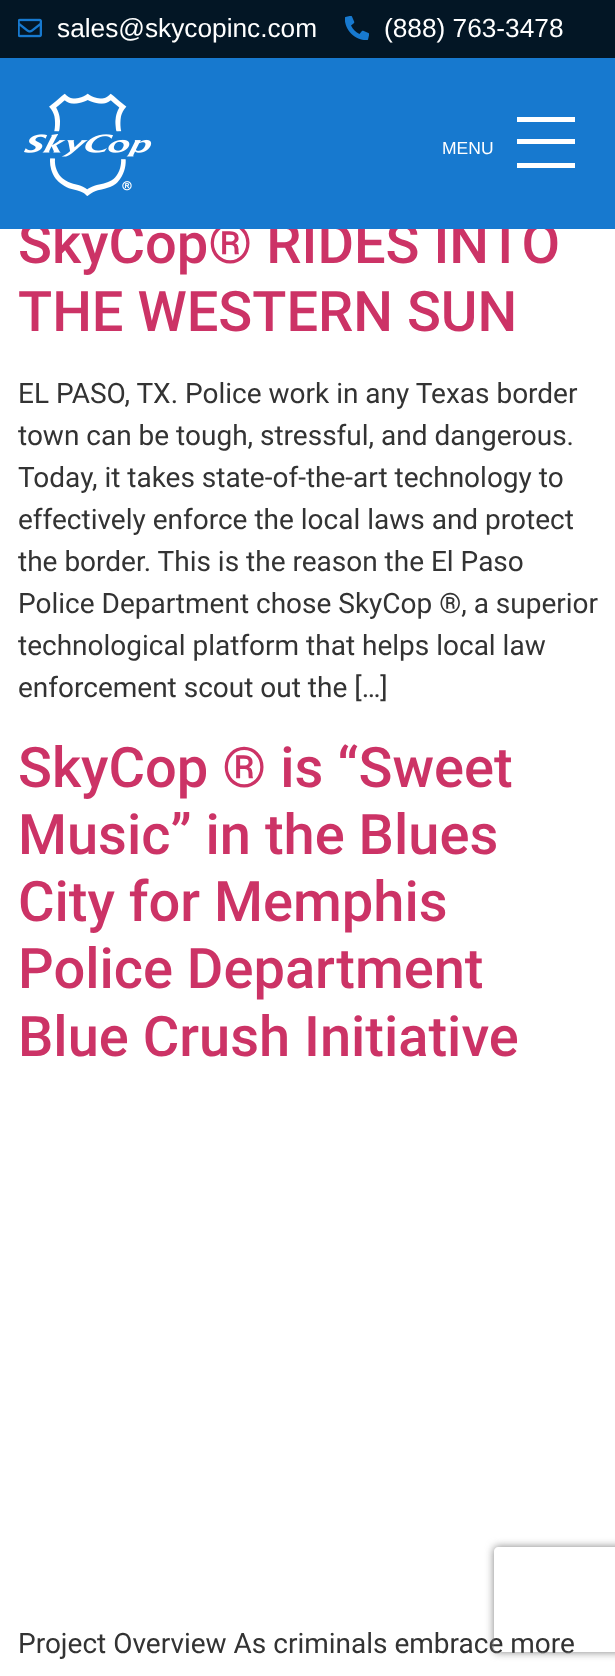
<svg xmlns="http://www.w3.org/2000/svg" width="615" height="1676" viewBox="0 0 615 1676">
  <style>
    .t1 { font: 26.25px Liberation Sans; fill: #fff; }
    .t2 { font: 500 56px Roboto; fill: #c36; }
    .t3 { font: 17.5px Liberation Sans; fill: #fff; }
    .t4 { font: 28px Roboto; fill: #333; }
  </style>
  <defs>
    <clipPath id="clip1"><path d="M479 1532H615V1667H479ZM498 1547H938C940 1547 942 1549 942 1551V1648C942 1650 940 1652 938 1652H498C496 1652 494 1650 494 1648V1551C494 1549 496 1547 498 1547Z" clip-rule="evenodd"/></clipPath>
  </defs>
  <rect width="100%" height="100%" fill="#fff"/>
  <rect x="0" y="0" width="615" height="58" fill="#031625"/>
  <image x="18" y="18" width="24" height="20" href="images/1.png"/>
  <text x="57" y="37" class="t1">sales@skycopinc.com</text>
  <image x="345" y="16" width="24" height="24" href="images/2.png"/>
  <text x="384" y="37" class="t1">(888) 763-3478</text>
  <text x="18" y="263" class="t2">SkyCop® RIDES INTO</text>
  <rect x="0" y="58" width="615" height="171" fill="#1779cf"/>
  <image x="24" y="93" width="128" height="103" href="images/3.png"/>
  <text x="442" y="154" class="t3">MENU</text>
  <rect x="517" y="117" width="58" height="5" fill="#fff"/>
  <rect x="517" y="139" width="58" height="5" fill="#fff"/>
  <rect x="517" y="163" width="58" height="5" fill="#fff"/>
  <text x="18" y="331" class="t2">THE WESTERN SUN</text>
  <text x="18" y="403" class="t4">EL PASO, TX. Police work in any Texas border</text>
  <text x="18" y="445" class="t4">town can be tough, stressful, and dangerous.</text>
  <text x="18" y="487" class="t4">Today, it takes state-of-the-art technology to</text>
  <text x="18" y="529" class="t4">effectively enforce the local laws and protect</text>
  <text x="18" y="571" class="t4">the border. This is the reason the El Paso</text>
  <text x="18" y="613" class="t4">Police Department chose SkyCop ®, a superior</text>
  <text x="18" y="655" class="t4">technological platform that helps local law</text>
  <text x="18" y="697" class="t4">enforcement scout out the […]</text>
  <text x="18" y="787" class="t2">SkyCop ® is “Sweet</text>
  <text x="18" y="854" class="t2">Music” in the Blues</text>
  <text x="18" y="921" class="t2">City for Memphis</text>
  <text x="18" y="988" class="t2">Police Department</text>
  <text x="18" y="1056" class="t2">Blue Crush Initiative</text>
  <text x="18" y="1653" class="t4">Project Overview As criminals embrace more</text>
  <g clip-path="url(#clip1)">
    <rect x="494" y="1547" width="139" height="105" rx="4" fill="#808080" filter="blur(4.5px)"/>
  </g>
</svg>
